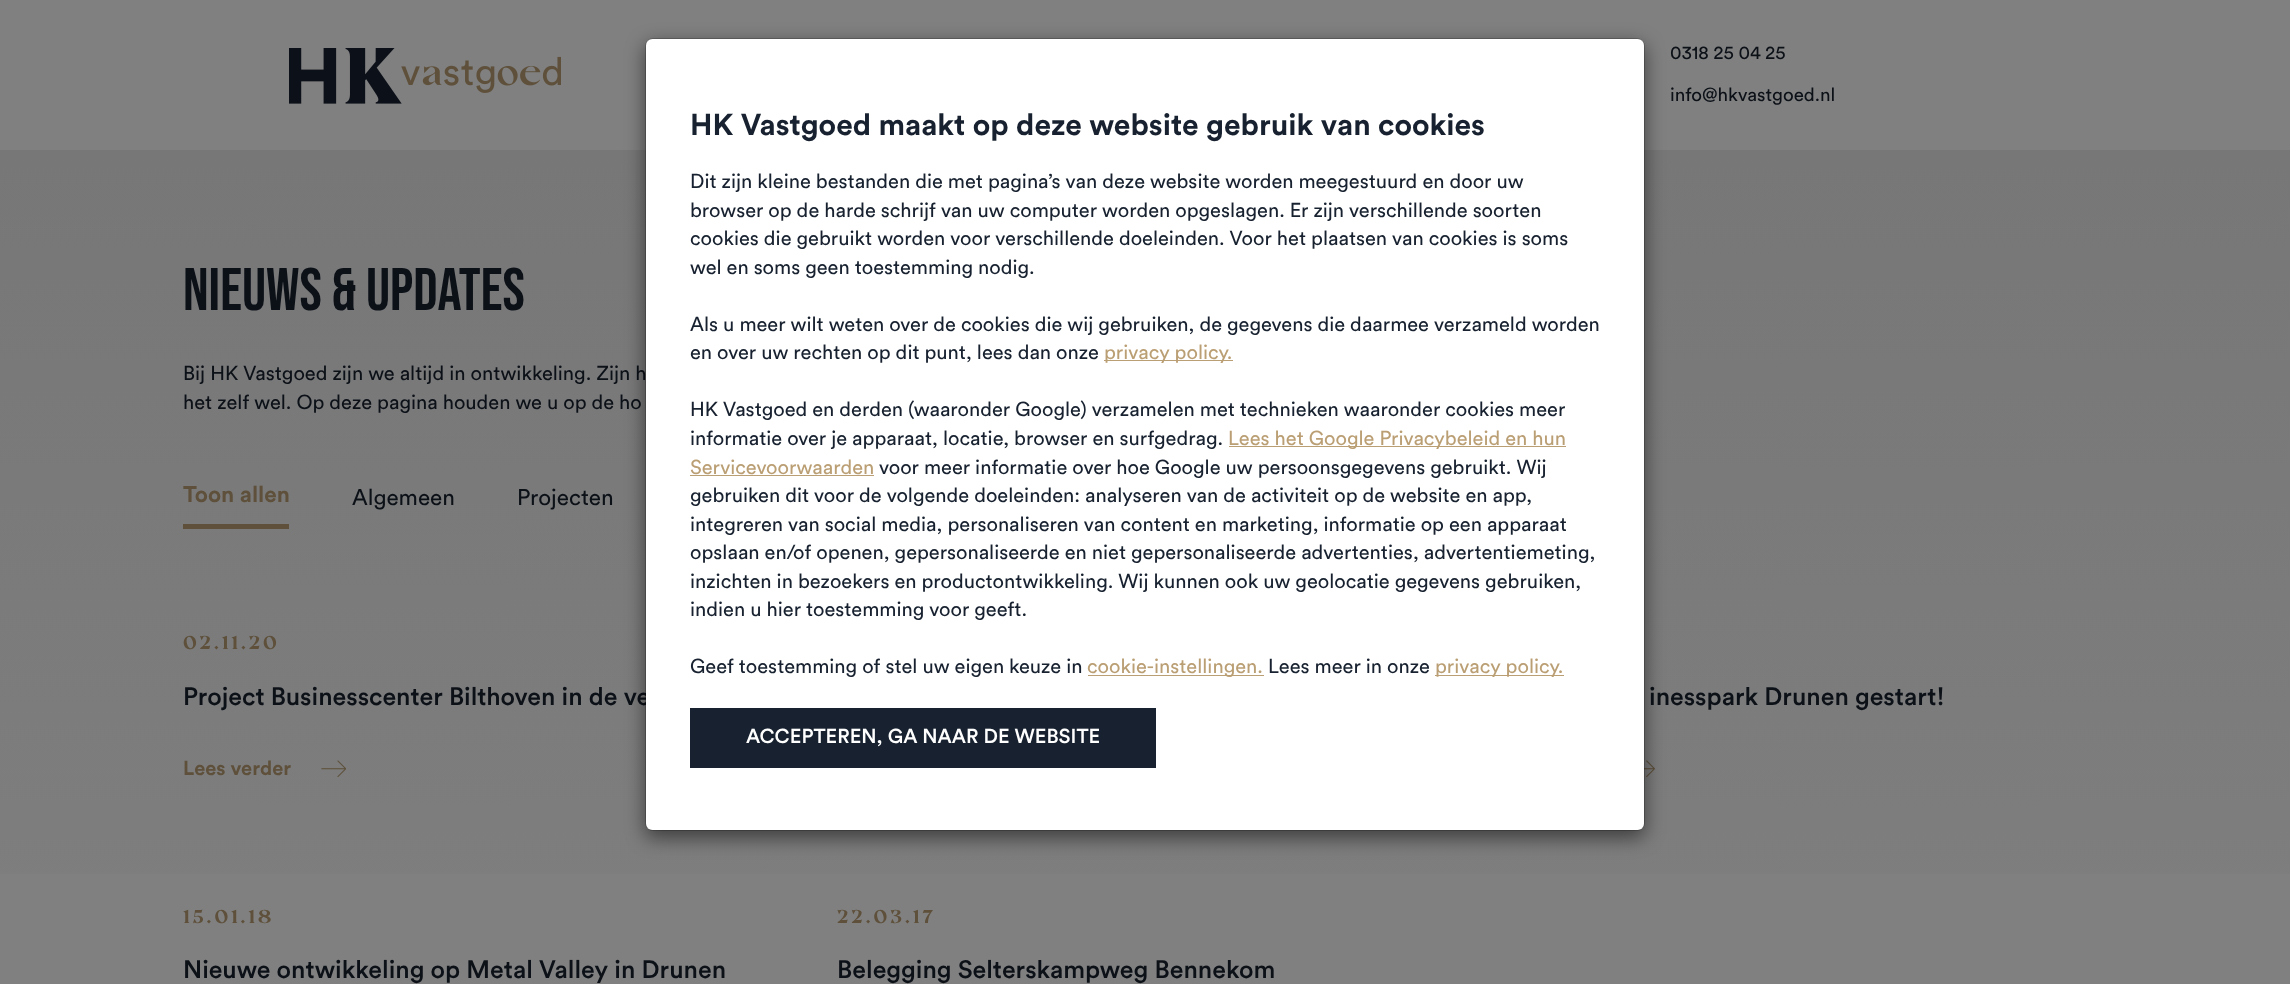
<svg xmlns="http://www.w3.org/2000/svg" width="2290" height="984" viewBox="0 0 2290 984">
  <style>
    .t1 { font: 18.75px Circular; fill: #0c1118; }
    .t2 { font: 60px Bebas Neue; fill: #0c1118; }
    .t3 { font: 20px Circular; fill: #0c1118; }
    .t4 { font: bold 22.5px Circular; fill: #5e503a; }
    .t5 { font: 22.5px Circular; fill: #0c1118; }
    .t6 { font: bold 21.25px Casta; letter-spacing: 2.75px; fill: #5e503a; }
    .t7 { font: 500 25px Circular; fill: #0c1118; }
    .t8 { font: bold 20px Circular; fill: #5e503a; }
    .t9 { font: bold 30px Circular; fill: #17212f; }
    .t10 { font: 20px Circular; fill: #17212f; }
    .t11 { font: 20px Circular; fill: #bb9f74; }
    .t12 { font: 500 20px Circular; fill: #fff; }
  </style>
  <defs>
    <linearGradient id="g1" gradientUnits="userSpaceOnUse" x1="1145" y1="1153" x2="1145" y2="150"><stop offset="0" stop-color="#808080"/><stop offset="1" stop-color="#777778"/></linearGradient>
  </defs>
  <rect width="100%" height="100%" fill="#808080"/>
  <image x="289" y="48" width="272" height="56" href="images/1.png"/>
  <text x="1670" y="59" class="t1">0318 25 04 25</text>
  <text x="1670" y="101" class="t1">info@hkvastgoed.nl</text>
  <rect x="0" y="150" width="2290" height="724" fill="url(#g1)"/>
  <text x="183" y="310" class="t2">Nieuws &amp; updates</text>
  <text x="183" y="380" class="t3">Bij HK Vastgoed zijn we altijd in ontwikkeling. Zijn h</text>
  <text x="183" y="409" class="t3">het zelf wel. Op deze pagina houden we u op de ho</text>
  <rect x="183" y="524" width="106" height="5" fill="#5e503a"/>
  <text x="183" y="502" class="t4">Toon allen</text>
  <text x="352" y="505" class="t5">Algemeen</text>
  <text x="517" y="505" class="t5">Projecten</text>
  <text x="183" y="649" class="t6">02.11.20</text>
  <text x="183" y="705" class="t7">Project Businesscenter Bilthoven in de ve</text>
  <text x="183" y="775" class="t8">Lees verder</text>
  <image x="321" y="760" width="25" height="17" href="images/2.png"/>
  <text x="1649" y="705" class="t7">inesspark Drunen gestart!</text>
  <image x="1644" y="760" width="11" height="17" href="images/3.png"/>
  <text x="183" y="923" class="t6">15.01.18</text>
  <text x="183" y="978" class="t7">Nieuwe ontwikkeling op Metal Valley in Drunen</text>
  <text x="837" y="923" class="t6">22.03.17</text>
  <text x="837" y="978" class="t7">Belegging Selterskampweg Bennekom</text>
  <rect x="645" y="44" width="1000" height="794" rx="8" fill="#00000080" filter="blur(9.5px)"/>
  <rect x="646" y="39" width="998" height="791" rx="6" fill="#fff"/>
  <rect x="645.5" y="38.5" width="999" height="792" rx="7.5" fill="none" stroke="#00000033"/>
  <text x="690" y="135" class="t9">HK Vastgoed maakt op deze website gebruik van cookies</text>
  <text x="690" y="188" class="t10">Dit zijn kleine bestanden die met pagina’s van deze website worden meegestuurd en door uw</text>
  <text x="690" y="217" class="t10">browser op de harde schrijf van uw computer worden opgeslagen. Er zijn verschillende soorten</text>
  <text x="690" y="245" class="t10">cookies die gebruikt worden voor verschillende doeleinden. Voor het plaatsen van cookies is soms</text>
  <text x="690" y="274" class="t10">wel en soms geen toestemming nodig.</text>
  <text x="690" y="331" class="t10">Als u meer wilt weten over de cookies die wij gebruiken, de gegevens die daarmee verzameld worden</text>
  <text x="690" y="359" class="t10">en over uw rechten op dit punt, lees dan onze</text>
  <rect x="1104" y="360" width="129" height="1" fill="#bb9f74"/>
  <text x="1104" y="359" class="t11">privacy policy.</text>
  <text x="690" y="416" class="t10">HK Vastgoed en derden (waaronder Google) verzamelen met technieken waaronder cookies meer</text>
  <text x="690" y="445" class="t10">informatie over je apparaat, locatie, browser en surfgedrag.</text>
  <rect x="1229" y="446" width="337" height="1" fill="#bb9f74"/>
  <text x="1228" y="445" class="t11">Lees het Google Privacybeleid en hun</text>
  <text x="690" y="474" class="t11">Servicevoorwaarden</text>
  <rect x="690" y="475" width="184" height="1" fill="#bb9f74"/>
  <text x="879" y="474" class="t10">voor meer informatie over hoe Google uw persoonsgegevens gebruikt. Wij</text>
  <text x="690" y="502" class="t10">gebruiken dit voor de volgende doeleinden: analyseren van de activiteit op de website en app,</text>
  <text x="690" y="531" class="t10">integreren van social media, personaliseren van content en marketing, informatie op een apparaat</text>
  <text x="690" y="559" class="t10">opslaan en/of openen, gepersonaliseerde en niet gepersonaliseerde advertenties, advertentiemeting,</text>
  <text x="690" y="588" class="t10">inzichten in bezoekers en productontwikkeling. Wij kunnen ook uw geolocatie gegevens gebruiken,</text>
  <text x="690" y="616" class="t10">indien u hier toestemming voor geeft.</text>
  <text x="690" y="673" class="t10">Geef toestemming of stel uw eigen keuze in</text>
  <rect x="1088" y="675" width="176" height="1" fill="#bb9f74"/>
  <text x="1087" y="673" class="t11">cookie-instellingen.</text>
  <text x="1268" y="673" class="t10">Lees meer in onze</text>
  <rect x="1435" y="675" width="129" height="1" fill="#bb9f74"/>
  <text x="1435" y="673" class="t11">privacy policy.</text>
  <rect x="690" y="708" width="466" height="60" fill="#17212f"/>
  <text x="746" y="743" class="t12">ACCEPTEREN, GA NAAR DE WEBSITE</text>
</svg>
